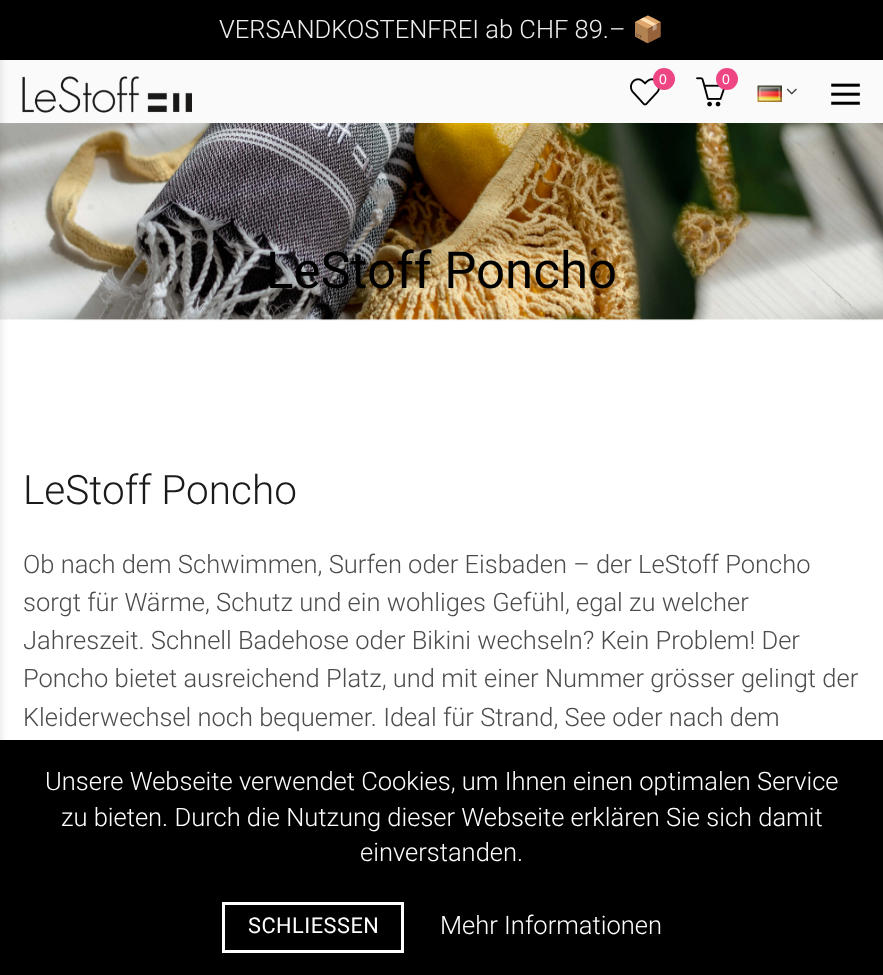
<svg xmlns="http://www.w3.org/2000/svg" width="883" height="975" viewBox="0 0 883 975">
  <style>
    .t1 { font: 300 25.5px Roboto; fill: #eee; }
    .t2 { font: 25.5px Noto Color Emoji; fill: #eee; }
    .t3 { font: 14px Liberation Sans; fill: #fff; }
    .t4 { font: 51px Roboto; fill: #000; }
    .t5 { font: 300 40.5px Roboto; fill: #1b1919; }
    .t6 { font: 300 25.5px Roboto; fill: #4c4c4c; }
    .t7 { font: 300 25.5px Roboto; fill: #fff; }
    .t8 { font: 21.75px Roboto; letter-spacing: 0.5px; fill: #fff; }
  </style>
  <rect width="100%" height="100%" fill="#fff"/>
  <rect x="0" y="0" width="883" height="60" fill="#000"/>
  <rect x="0" y="60" width="883" height="63" fill="#fafafa"/>
  <image x="0" y="123" width="883" height="198" href="images/7.png"/>
  <rect x="-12" y="2" width="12" height="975" fill="#00000021" filter="blur(4px)"/>
  <text x="219" y="38" class="t1">VERSANDKOSTENFREI ab CHF 89.–</text>
  <text x="632" y="38" class="t2">📦</text>
  <image x="22" y="76" width="170" height="37" href="images/1.png"/>
  <image x="630" y="78" width="30" height="28" href="images/2.png"/>
  <circle cx="664" cy="79" r="11" fill="#ee4684"/>
  <text x="659" y="84" class="t3">0</text>
  <image x="696" y="77" width="29" height="30" href="images/3.png"/>
  <circle cx="727" cy="79" r="11" fill="#ee4684"/>
  <text x="722" y="84" class="t3">0</text>
  <image x="757" y="85" width="25" height="17" href="images/4.png"/>
  <image x="786" y="88" width="11" height="7" href="images/5.png"/>
  <image x="831" y="83" width="29" height="22" href="images/6.png"/>
  <text x="266" y="288" class="t4">LeStoff Poncho</text>
  <text x="23" y="504" class="t5">LeStoff Poncho</text>
  <text x="23" y="573" class="t6">Ob nach dem Schwimmen, Surfen oder Eisbaden – der LeStoff Poncho</text>
  <text x="23" y="611" class="t6">sorgt für Wärme, Schutz und ein wohliges Gefühl, egal zu welcher</text>
  <text x="23" y="649" class="t6">Jahreszeit. Schnell Badehose oder Bikini wechseln? Kein Problem! Der</text>
  <text x="23" y="687" class="t6">Poncho bietet ausreichend Platz, und mit einer Nummer grösser gelingt der</text>
  <text x="23" y="726" class="t6">Kleiderwechsel noch bequemer. Ideal für Strand, See oder nach dem</text>
  <rect x="0" y="740" width="883" height="235" fill="#000"/>
  <text x="45" y="790" class="t7">Unsere Webseite verwendet Cookies, um Ihnen einen optimalen Service</text>
  <text x="61" y="826" class="t7">zu bieten. Durch die Nutzung dieser Webseite erklären Sie sich damit</text>
  <text x="360" y="861" class="t7">einverstanden.</text>
  <rect x="223.5" y="903.5" width="179" height="48" fill="none" stroke="#fff" stroke-width="3"/>
  <text x="248" y="933" class="t8">SCHLIESSEN</text>
  <text x="440" y="934" class="t7">Mehr Informationen</text>
</svg>
